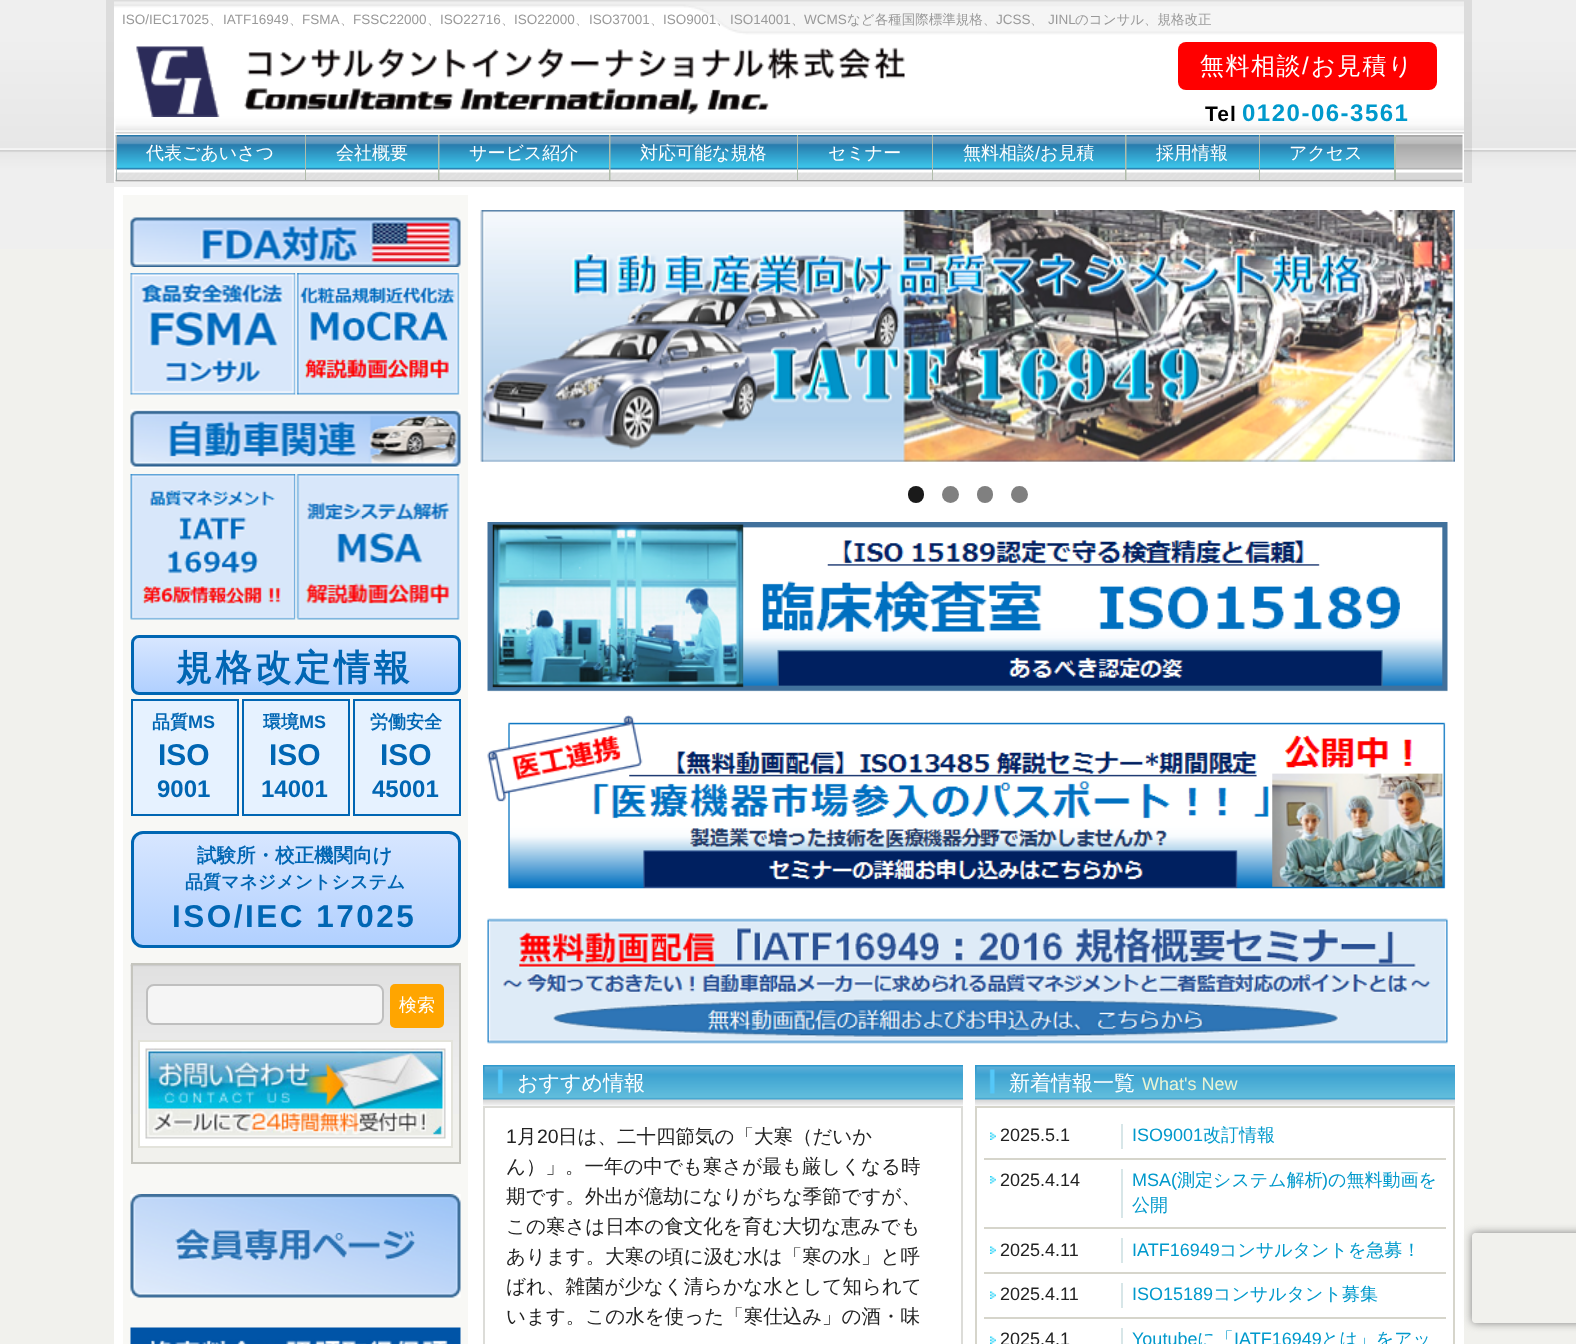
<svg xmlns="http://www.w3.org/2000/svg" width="1576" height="1344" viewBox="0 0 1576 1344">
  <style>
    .t1 { font: 13.5px Liberation Sans; fill: #999; }
    .t2 { font: 500 13.5px WenQuanYi Zen Hei; fill: #999; }
    .t3 { font: 500 24px WenQuanYi Zen Hei; letter-spacing: 1.5px; fill: #fff; }
    .t4 { font: 24px Liberation Sans; letter-spacing: 1.5px; fill: #fff; }
    .t5 { font: bold 21px Liberation Sans; letter-spacing: 1px; fill: #000; }
    .t6 { font: bold 24px Liberation Sans; letter-spacing: 1.5px; fill: #09c; }
    .t7 { font: 500 18px WenQuanYi Zen Hei; fill: #fff; }
    .t8 { font: 18px Liberation Sans; fill: #fff; }
    .t9 { font: bold 36px WenQuanYi Zen Hei; letter-spacing: 3.5px; fill: #0066b3; }
    .t10 { font: bold 18px WenQuanYi Zen Hei; fill: #0066b3; }
    .t11 { font: bold 18px Liberation Sans; fill: #0066b3; }
    .t12 { font: bold 30px Liberation Sans; fill: #0066b3; }
    .t13 { font: bold 24px Liberation Sans; fill: #0066b3; }
    .t14 { font: bold 19.5px WenQuanYi Zen Hei; fill: #0066b3; }
    .t15 { font: bold 31.5px Liberation Sans; letter-spacing: 2.5px; fill: #0066b3; }
    .t16 { font: 500 21px WenQuanYi Zen Hei; fill: #fff; }
    .t17 { font: 19.5px Liberation Sans; fill: #222; }
    .t18 { font: 500 19.5px WenQuanYi Zen Hei; fill: #222; }
    .t19 { font: 18px Liberation Sans; fill: #e8f4d5; }
    .t20 { font: 18px Liberation Sans; fill: #222; }
    .t21 { font: 18px Liberation Sans; fill: #09c; }
    .t22 { font: 500 18px WenQuanYi Zen Hei; fill: #09c; }
  </style>
  <defs>
    <clipPath id="clip1"><rect x="131" y="635" width="330" height="60" rx="8"/></clipPath>
    <linearGradient id="g1" gradientUnits="userSpaceOnUse" x1="296" y1="638" x2="296" y2="692"><stop offset="0" stop-color="#d7e6ff"/><stop offset="1" stop-color="#b1d0ff"/></linearGradient>
    <clipPath id="clip2"><rect x="131" y="831" width="330" height="117" rx="12"/></clipPath>
    <linearGradient id="g2" gradientUnits="userSpaceOnUse" x1="296" y1="834" x2="296" y2="945"><stop offset="0" stop-color="#d7e6ff"/><stop offset="1" stop-color="#b1d0ff"/></linearGradient>
    <clipPath id="clip3"><path d="M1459 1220H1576V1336H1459ZM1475 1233H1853C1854.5 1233 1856 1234.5 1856 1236V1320C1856 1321.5 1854.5 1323 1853 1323H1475C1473.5 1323 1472 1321.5 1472 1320V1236C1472 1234.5 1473.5 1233 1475 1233Z" clip-rule="evenodd"/></clipPath>
  </defs>
  <rect width="100%" height="100%" fill="#f1f1ed"/>
  <image x="0" y="0" width="1576" height="249" href="images/1.png"/>
  <image x="106" y="0" width="1366" height="183" href="images/2.png"/>
  <rect x="114" y="134" width="1350" height="48" fill="#fff"/>
  <image x="114" y="1" width="1350" height="133" href="images/3.png"/>
  <text x="122" y="24" class="t1">ISO/IEC17025</text>
  <text x="209" y="24" class="t2">、</text>
  <text x="223" y="24" class="t1">IATF16949</text>
  <text x="289" y="24" class="t2">、</text>
  <text x="302" y="24" class="t1">FSMA</text>
  <text x="340" y="24" class="t2">、</text>
  <text x="353" y="24" class="t1">FSSC22000</text>
  <text x="427" y="24" class="t2">、</text>
  <text x="440" y="24" class="t1">ISO22716</text>
  <text x="501" y="24" class="t2">、</text>
  <text x="514" y="24" class="t1">ISO22000</text>
  <text x="575" y="24" class="t2">、</text>
  <text x="589" y="24" class="t1">ISO37001</text>
  <text x="650" y="24" class="t2">、</text>
  <text x="663" y="24" class="t1">ISO9001</text>
  <text x="716" y="24" class="t2">、</text>
  <text x="730" y="24" class="t1">ISO14001</text>
  <text x="791" y="24" class="t2">、</text>
  <text x="804" y="24" class="t1">WCMS</text>
  <text x="847" y="24" class="t2">など各種国際標準規格、</text>
  <text x="996" y="24" class="t1">JCSS</text>
  <text x="1030" y="24" class="t2">、</text>
  <text x="1048" y="24" class="t1">JINL</text>
  <text x="1075" y="24" class="t2">のコンサル、規格改正</text>
  <image x="136" y="46" width="769" height="71" href="images/4.png"/>
  <rect x="1178" y="42" width="259" height="48" rx="8" fill="#f00"/>
  <text x="1200" y="74" class="t3">無料相談</text>
  <text x="1302" y="74" class="t4">/</text>
  <text x="1311" y="74" class="t3">お見積り</text>
  <text x="1205" y="121" class="t5">Tel</text>
  <text x="1242" y="121" class="t6">0120-06-3561</text>
  <image x="115" y="135" width="1348" height="47" href="images/5.png"/>
  <rect x="116" y="135" width="1" height="45" fill="#a7b3b3"/>
  <image x="117" y="135" width="188" height="45" href="images/6.png"/>
  <rect x="305" y="135" width="1" height="45" fill="#b1bdaa"/>
  <text x="146" y="159" class="t7">代表ごあいさつ</text>
  <image x="306" y="135" width="132" height="45" href="images/7.png"/>
  <rect x="438" y="135" width="2" height="45" fill="#b1bdaa"/>
  <text x="336" y="159" class="t7">会社概要</text>
  <image x="439" y="135" width="170" height="45" href="images/8.png"/>
  <rect x="609" y="135" width="2" height="45" fill="#b1bdaa"/>
  <text x="469" y="159" class="t7">サービス紹介</text>
  <image x="610" y="135" width="187" height="45" href="images/9.png"/>
  <rect x="797" y="135" width="1" height="45" fill="#b1bdaa"/>
  <text x="640" y="159" class="t7">対応可能な規格</text>
  <image x="798" y="135" width="134" height="45" href="images/10.png"/>
  <rect x="932" y="135" width="1" height="45" fill="#b1bdaa"/>
  <text x="828" y="159" class="t7">セミナー</text>
  <image x="933" y="135" width="192" height="45" href="images/11.png"/>
  <rect x="1125" y="135" width="2" height="45" fill="#b1bdaa"/>
  <text x="963" y="159" class="t7">無料相談</text>
  <text x="1035" y="159" class="t8">/</text>
  <text x="1040" y="159" class="t7">お見積</text>
  <image x="1126" y="135" width="133" height="45" href="images/12.png"/>
  <rect x="1259" y="135" width="1" height="45" fill="#b1bdaa"/>
  <text x="1156" y="159" class="t7">採用情報</text>
  <image x="1260" y="135" width="134" height="45" href="images/13.png"/>
  <rect x="1394" y="135" width="2" height="45" fill="#b1bdaa"/>
  <text x="1289" y="159" class="t7">アクセス</text>
  <rect x="114" y="187" width="1350" height="1157" fill="#fff"/>
  <rect x="114" y="182" width="1350" height="5" fill="#f0f0f0"/>
  <rect x="123" y="195" width="345" height="1149" fill="#f8f8f5"/>
  <image x="130" y="217" width="331" height="50" href="images/14.png"/>
  <image x="130" y="273" width="166" height="122" href="images/15.png"/>
  <image x="295" y="273" width="166" height="122" href="images/16.png"/>
  <image x="130" y="409" width="331" height="59" href="images/17.png"/>
  <image x="130" y="474" width="166" height="146" href="images/18.png"/>
  <image x="295" y="474" width="166" height="146" href="images/19.png"/>
  <g clip-path="url(#clip1)">
    <rect x="131" y="638" width="330" height="54" fill="url(#g1)"/>
  </g>
  <rect x="132.5" y="636.5" width="327" height="57" rx="6.5" fill="none" stroke="#0066b3" stroke-width="3"/>
  <text x="176" y="680" class="t9">規格改定情報</text>
  <rect x="132" y="700" width="106" height="115" fill="#e6f2ff" stroke="#0066b3" stroke-width="2"/>
  <text x="152" y="728" class="t10">品質</text>
  <text x="188" y="728" class="t11">MS</text>
  <text x="158" y="765" class="t12">ISO</text>
  <text x="157" y="797" class="t13">9001</text>
  <rect x="243" y="700" width="106" height="115" fill="#e6f2ff" stroke="#0066b3" stroke-width="2"/>
  <text x="263" y="728" class="t10">環境</text>
  <text x="299" y="728" class="t11">MS</text>
  <text x="269" y="765" class="t12">ISO</text>
  <text x="261" y="797" class="t13">14001</text>
  <rect x="354" y="700" width="106" height="115" fill="#e6f2ff" stroke="#0066b3" stroke-width="2"/>
  <text x="370" y="728" class="t10">労働安全</text>
  <text x="380" y="765" class="t12">ISO</text>
  <text x="372" y="797" class="t13">45001</text>
  <g clip-path="url(#clip2)">
    <rect x="131" y="834" width="330" height="111" fill="url(#g2)"/>
  </g>
  <rect x="132.5" y="832.5" width="327" height="114" rx="10.5" fill="none" stroke="#0066b3" stroke-width="3"/>
  <text x="197" y="862" class="t14">試験所・校正機関向け</text>
  <text x="185" y="888" class="t10">品質マネジメントシステム</text>
  <text x="172" y="927" class="t15">ISO/IEC 17025</text>
  <rect x="133" y="1114" width="326" height="48" fill="#f1f1ed"/>
  <image x="130" y="964" width="329" height="150" href="images/20.png"/>
  <rect x="132" y="964" width="328" height="199" fill="none" stroke="#c5c5be" stroke-width="2"/>
  <rect x="147" y="985" width="236" height="39" rx="7" fill="#f5f5f5" stroke="#bfbfbf" stroke-width="2"/>
  <rect x="390" y="984" width="54" height="44" rx="5" fill="#ffa500"/>
  <text x="399" y="1011" class="t7">検索</text>
  <rect x="139" y="1041" width="313" height="106" fill="#fff" stroke="#e3e3db" stroke-width="2"/>
  <image x="145" y="1048" width="301" height="91" href="images/21.png"/>
  <image x="130" y="1194" width="331" height="104" href="images/22.png"/>
  <image x="130" y="1327" width="331" height="17" href="images/23.png"/>
  <image x="480" y="210" width="975" height="252" href="images/24.png"/>
  <rect x="908" y="486" width="16" height="17" rx="8" fill="#1a1a1a"/>
  <circle cx="950.5" cy="494.5" r="8.5" fill="#808080"/>
  <rect x="977" y="486" width="16" height="17" rx="8" fill="#808080"/>
  <circle cx="1019.5" cy="494.5" r="8.5" fill="#808080"/>
  <image x="487" y="522" width="961" height="170" href="images/25.png"/>
  <image x="487" y="715" width="959" height="174" href="images/26.png"/>
  <image x="487" y="918" width="961" height="126" href="images/27.png"/>
  <image x="483" y="1065" width="480" height="41" href="images/28.png"/>
  <text x="517" y="1090" class="t16">おすすめ情報</text>
  <rect x="484" y="1107" width="478" height="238" fill="none" stroke="#dcdcd8" stroke-width="2"/>
  <text x="506" y="1143" class="t17">1</text>
  <text x="517" y="1143" class="t18">月</text>
  <text x="537" y="1143" class="t17">20</text>
  <text x="558" y="1143" class="t18">日は、二十四節気の「大寒（だいか</text>
  <text x="506" y="1173" class="t18">ん）」。一年の中でも寒さが最も厳しくなる時</text>
  <text x="506" y="1203" class="t18">期です。外出が億劫になりがちな季節ですが、</text>
  <text x="506" y="1233" class="t18">この寒さは日本の食文化を育む大切な恵みでも</text>
  <text x="506" y="1263" class="t18">あります。大寒の頃に汲む水は「寒の水」と呼</text>
  <text x="506" y="1293" class="t18">ばれ、雑菌が少なく清らかな水として知られて</text>
  <text x="506" y="1323" class="t18">います。この水を使った「寒仕込み」の酒・味</text>
  <image x="975" y="1065" width="480" height="41" href="images/29.png"/>
  <text x="1009" y="1090" class="t16">新着情報一覧</text>
  <text x="1142" y="1090" class="t19">What's New</text>
  <rect x="976" y="1107" width="478" height="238" fill="none" stroke="#d6d5cb" stroke-width="2"/>
  <rect x="984" y="1158" width="462" height="2" fill="#d6d5cb"/>
  <image x="990" y="1132" width="6" height="8" href="images/30.png"/>
  <text x="1000" y="1141" class="t20">2025.5.1</text>
  <rect x="1121" y="1124" width="2" height="25" fill="#d7e6e8"/>
  <text x="1132" y="1141" class="t21">ISO9001</text>
  <text x="1203" y="1141" class="t22">改訂情報</text>
  <rect x="984" y="1227" width="462" height="2" fill="#d6d5cb"/>
  <image x="990" y="1176" width="6" height="8" href="images/31.png"/>
  <text x="1000" y="1186" class="t20">2025.4.14</text>
  <rect x="1121" y="1169" width="2" height="49" fill="#d7e6e8"/>
  <text x="1132" y="1186" class="t21">MSA(</text>
  <text x="1177" y="1186" class="t22">測定システム解析</text>
  <text x="1322" y="1186" class="t21">)</text>
  <text x="1328" y="1186" class="t22">の無料動画を</text>
  <text x="1132" y="1211" class="t22">公開</text>
  <rect x="984" y="1272" width="462" height="2" fill="#d6d5cb"/>
  <image x="990" y="1246" width="6" height="8" href="images/30.png"/>
  <text x="1000" y="1256" class="t20">2025.4.11</text>
  <rect x="1121" y="1238" width="2" height="25" fill="#d7e6e8"/>
  <text x="1132" y="1256" class="t21">IATF16949</text>
  <text x="1219" y="1256" class="t22">コンサルタントを急募！</text>
  <rect x="984" y="1317" width="462" height="2" fill="#d6d5cb"/>
  <image x="990" y="1291" width="6" height="8" href="images/30.png"/>
  <text x="1000" y="1300" class="t20">2025.4.11</text>
  <rect x="1121" y="1283" width="2" height="25" fill="#d7e6e8"/>
  <text x="1132" y="1300" class="t21">ISO15189</text>
  <text x="1213" y="1300" class="t22">コンサルタント募集</text>
  <image x="990" y="1336" width="6" height="8" href="images/30.png"/>
  <text x="1000" y="1345" class="t20">2025.4.1</text>
  <rect x="1121" y="1328" width="2" height="16" fill="#d7e6e8"/>
  <text x="1132" y="1345" class="t21">Youtube</text>
  <text x="1197" y="1345" class="t22">に「</text>
  <text x="1234" y="1345" class="t21">IATF16949</text>
  <text x="1321" y="1345" class="t22">とは」をアッ</text>
  <g clip-path="url(#clip3)">
    <rect x="1472" y="1233" width="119" height="90" rx="3" fill="#808080" filter="blur(4px)"/>
  </g>
</svg>
